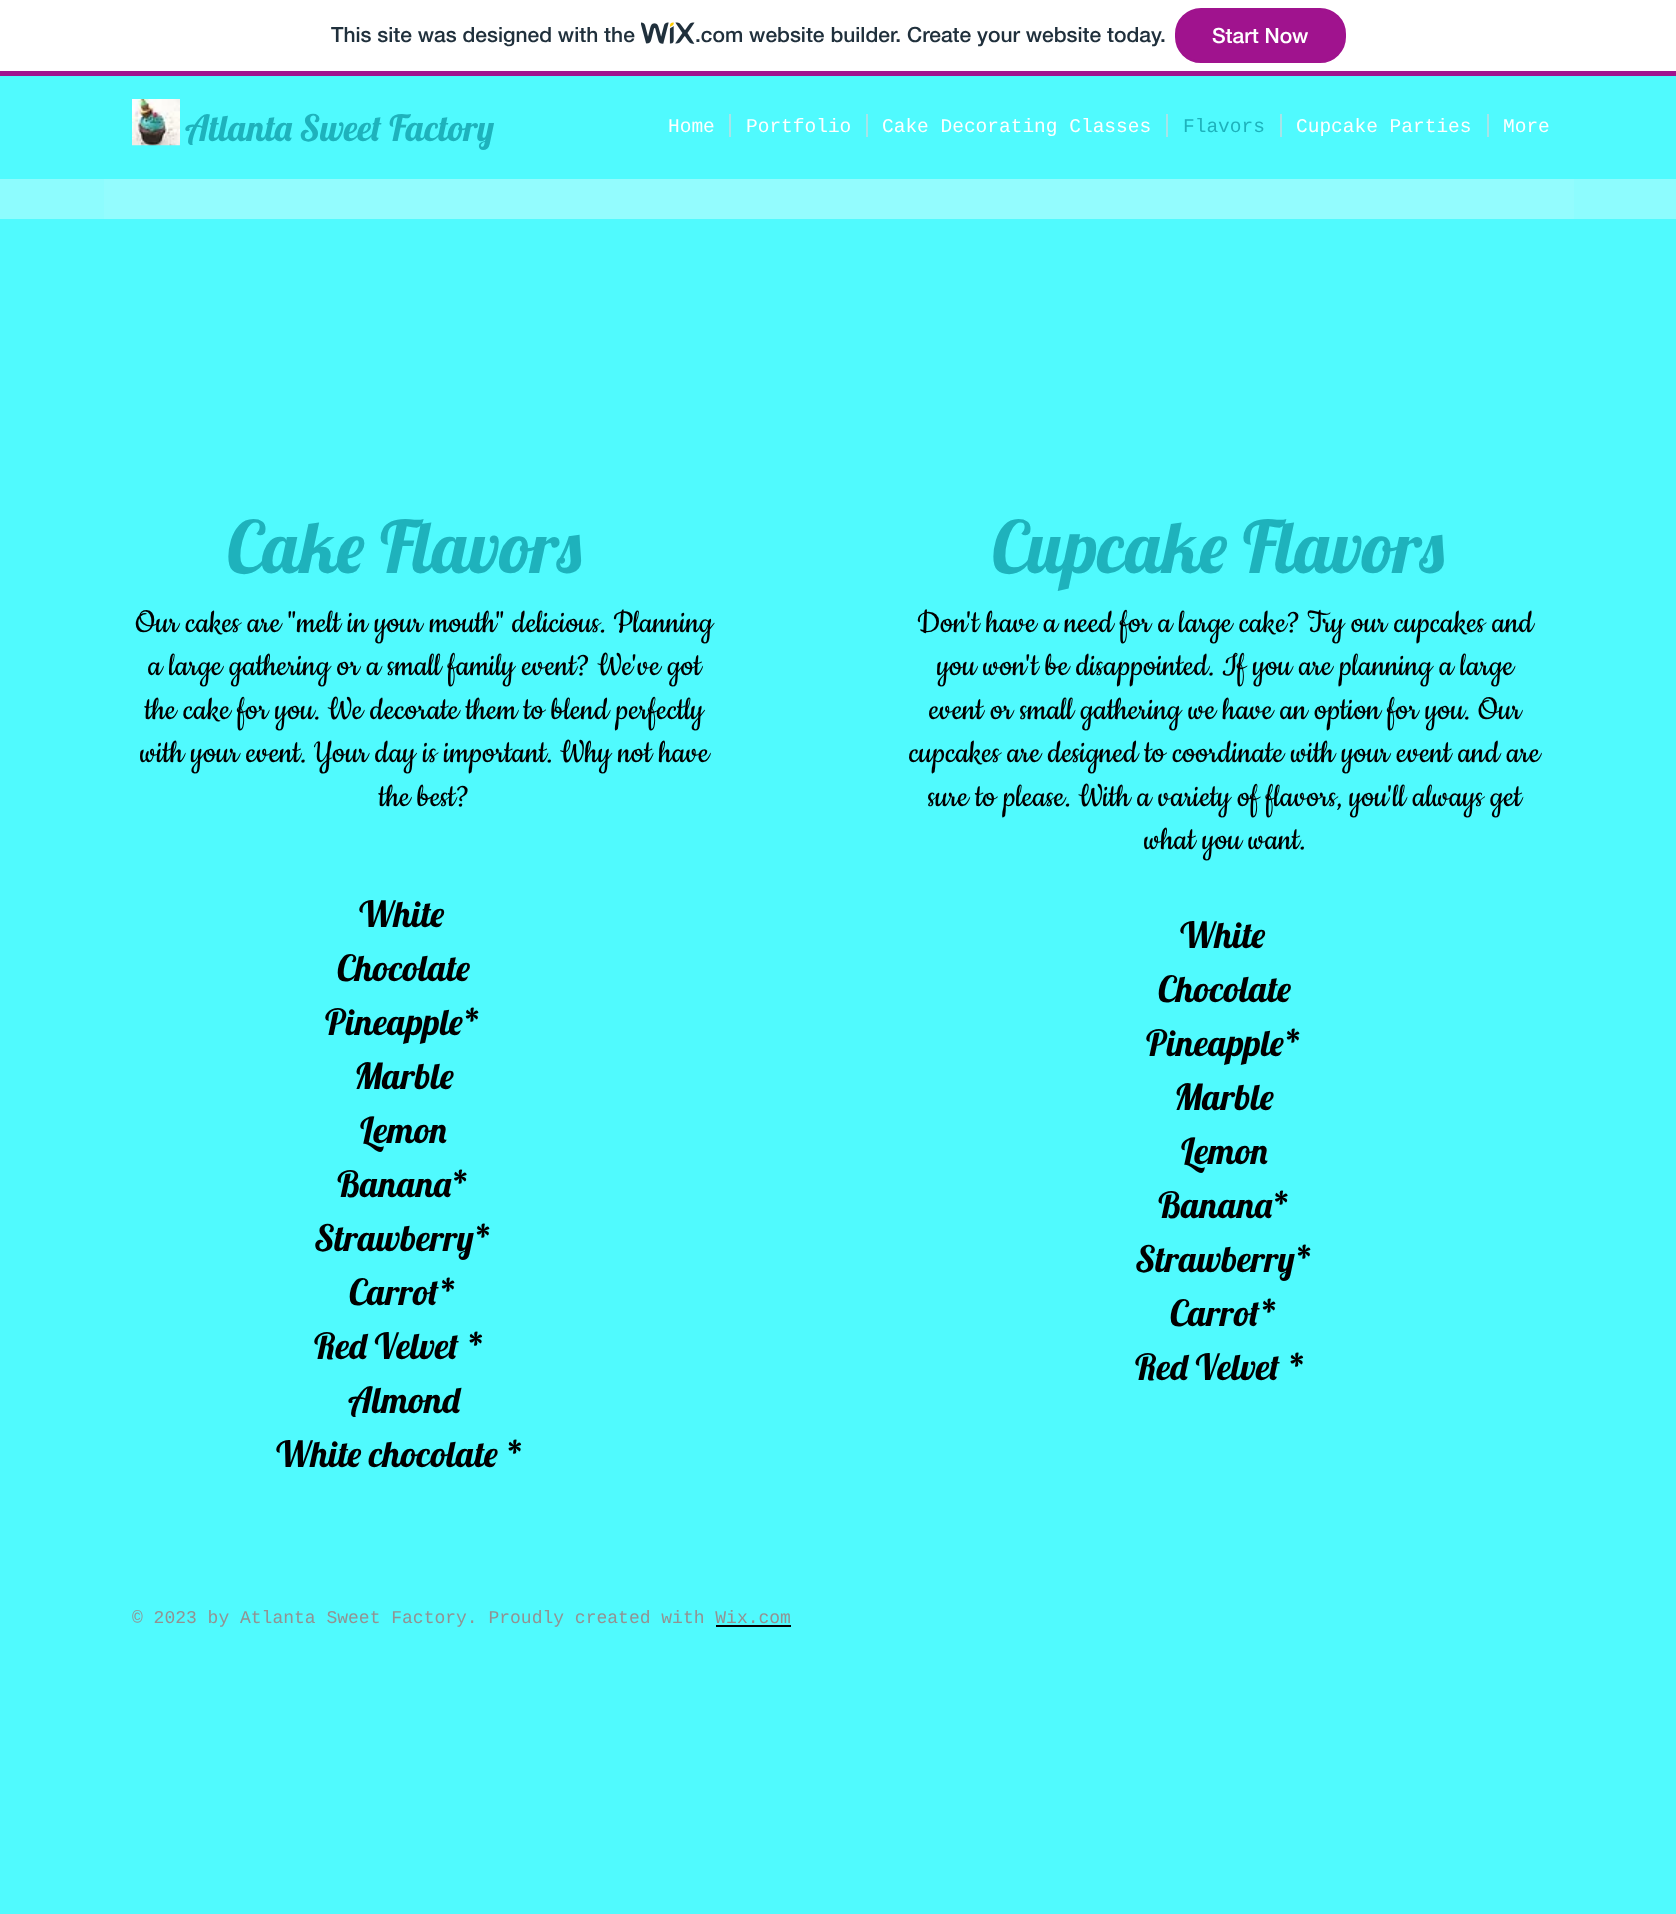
<svg xmlns="http://www.w3.org/2000/svg" width="1676" height="1914" viewBox="0 0 1676 1914">
  <style>
    .t1 { font: 500 21px 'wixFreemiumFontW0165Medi'; fill: #20303c; }
    .t2 { font: 500 21px 'wixFreemiumFontW0165Medi'; fill: #fff; }
    .t3 { font: 36px Lobster; fill: #1eb2bc; }
    .t4 { font: 19.5px Liberation Mono; fill: #fff; }
    .t5 { font: 19.5px Liberation Mono; fill: #1eb2bc; }
    .t6 { font: 72px Lobster; fill: #1eb2bc; }
    .t7 { font: 36px Cookie; fill: #000; }
    .t8 { font: 36px Lobster; fill: #000; }
    .t9 { font: 18px Liberation Mono; fill: #929292; }
  </style>
  <rect width="100%" height="100%" fill="#fff"/>
  <rect x="0" y="71" width="1676" height="5" fill="#a0138e"/>
  <text x="331" y="42" class="t1">This site was designed with the</text>
  <image x="641" y="22" width="54" height="22" href="images/1.png"/>
  <text x="695" y="42" class="t1">.com website builder. Create your website today.</text>
  <rect x="1176" y="9" width="169" height="53" rx="25" fill="#a0138e" stroke="#a0138e" stroke-width="2"/>
  <text x="1212" y="43" class="t2">Start Now</text>
  <rect x="0" y="76" width="1676" height="1838" fill="#50fafe"/>
  <image x="132" y="99" width="48" height="47" href="images/2.png"/>
  <text x="185" y="141" class="t3">Atlanta Sweet Factory</text>
  <text x="668" y="132" class="t4">Home</text>
  <rect x="729" y="114" width="2" height="23" fill="#a7e4e8"/>
  <text x="746" y="132" class="t4">Portfolio</text>
  <rect x="866" y="114" width="2" height="23" fill="#a7e4e8"/>
  <text x="882" y="132" class="t4">Cake Decorating Classes</text>
  <rect x="1166" y="114" width="2" height="23" fill="#a7e4e8"/>
  <text x="1183" y="132" class="t5">Flavors</text>
  <rect x="1280" y="114" width="2" height="23" fill="#a7e4e8"/>
  <text x="1296" y="132" class="t4">Cupcake Parties</text>
  <rect x="1487" y="114" width="2" height="23" fill="#a7e4e8"/>
  <text x="1503" y="132" class="t4">More</text>
  <rect x="0" y="179" width="1676" height="40" fill="#8dfcfe"/>
  <rect x="104" y="179" width="1470" height="40" fill="#93fcfe"/>
  <text x="227" y="573" class="t6">Cake Flavors</text>
  <text x="992" y="573" class="t6">Cupcake Flavors</text>
  <text x="135" y="632" class="t7">Our cakes are "melt in your mouth" delicious. Planning</text>
  <text x="148" y="675" class="t7">a large gathering or a small family event? We've got</text>
  <text x="145" y="719" class="t7">the cake for you. We decorate them to blend perfectly</text>
  <text x="140" y="762" class="t7">with your event. Your day is important. Why not have</text>
  <text x="379" y="806" class="t7">the best?</text>
  <text x="917" y="632" class="t7">Don't have a need for a large cake? Try our cupcakes and</text>
  <text x="937" y="675" class="t7">you won't be disappointed. If you are planning a large</text>
  <text x="929" y="719" class="t7">event or small gathering we have an option for you. Our</text>
  <text x="909" y="762" class="t7">cupcakes are designed to coordinate with your event and are</text>
  <text x="928" y="806" class="t7">sure to please. With a variety of flavors, you'll always get</text>
  <text x="1144" y="849" class="t7">what you want.</text>
  <text x="359" y="927" class="t8">White</text>
  <text x="337" y="981" class="t8">Chocolate</text>
  <text x="325" y="1035" class="t8">Pineapple*</text>
  <text x="354" y="1089" class="t8">Marble</text>
  <text x="360" y="1143" class="t8">Lemon</text>
  <text x="337" y="1197" class="t8">Banana*</text>
  <text x="314" y="1251" class="t8">Strawberry*</text>
  <text x="349" y="1305" class="t8">Carrot*</text>
  <text x="314" y="1359" class="t8">Red Velvet *</text>
  <text x="348" y="1413" class="t8">Almond</text>
  <text x="276" y="1467" class="t8">White chocolate *</text>
  <text x="1180" y="948" class="t8">White</text>
  <text x="1158" y="1002" class="t8">Chocolate</text>
  <text x="1146" y="1056" class="t8">Pineapple*</text>
  <text x="1174" y="1110" class="t8">Marble</text>
  <text x="1181" y="1164" class="t8">Lemon</text>
  <text x="1158" y="1218" class="t8">Banana*</text>
  <text x="1135" y="1272" class="t8">Strawberry*</text>
  <text x="1170" y="1326" class="t8">Carrot*</text>
  <text x="1135" y="1380" class="t8">Red Velvet *</text>
  <text x="132" y="1623" class="t9">© 2023 by Atlanta Sweet Factory. Proudly created with Wix.com</text>
  <rect x="716" y="1625" width="75" height="2" fill="#000"/>
</svg>
